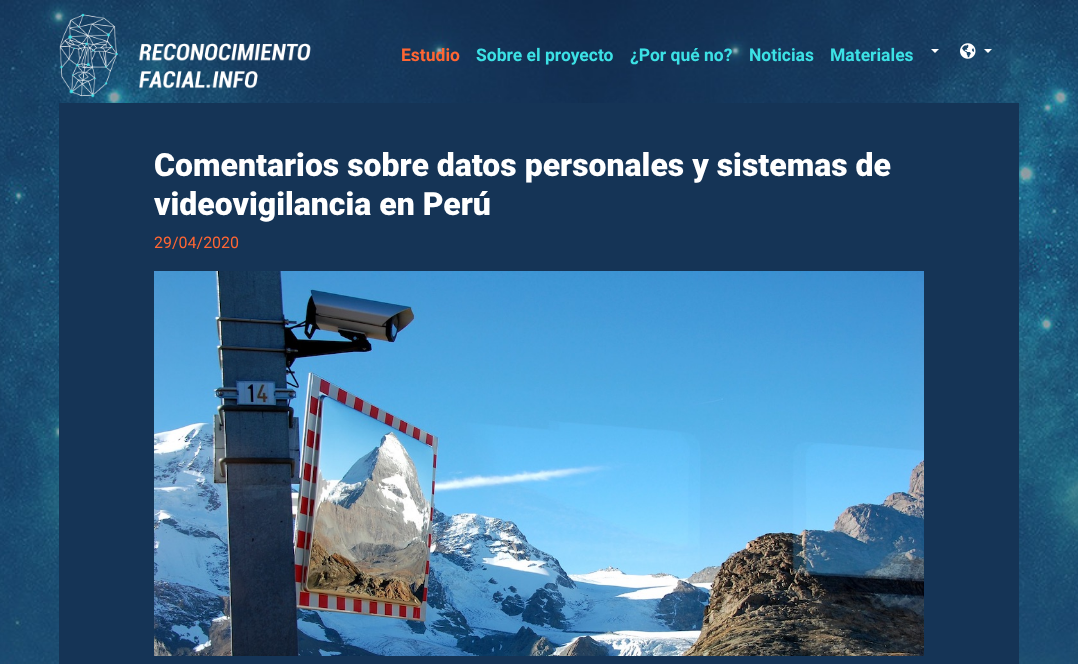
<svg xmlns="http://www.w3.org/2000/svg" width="1078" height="664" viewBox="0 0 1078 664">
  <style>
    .t1 { font: bold 17.5px Roboto; fill: #f63; }
    .t2 { font: bold 17.5px Roboto; fill: #3ce1e5; }
    .t3 { font: 900 32px Roboto; fill: #fff; }
    .t4 { font: 16px Roboto; fill: #f63; }
  </style>
  <rect width="100%" height="100%" fill="#fff"/>
  <image x="0" y="0" width="1078" height="664" href="images/1.png"/>
  <image x="59" y="13" width="252" height="85" href="images/2.png"/>
  <text x="401" y="61" class="t1">Estudio</text>
  <text x="476" y="61" class="t2">Sobre el proyecto</text>
  <text x="630" y="61" class="t2">¿Por qué no?</text>
  <text x="749" y="61" class="t2">Noticias</text>
  <text x="830" y="61" class="t2">Materiales</text>
  <path d="M931 49H939L935 53Z" fill="#fff"/>
  <image x="960" y="43" width="16" height="16" href="images/3.png"/>
  <path d="M984 49H992L988 53Z" fill="#fff"/>
  <rect x="59" y="103" width="960" height="561" fill="#153456"/>
  <text x="154" y="176" class="t3">Comentarios sobre datos personales y sistemas de</text>
  <text x="154" y="215" class="t3">videovigilancia en Perú</text>
  <text x="154" y="248" class="t4">29/04/2020</text>
  <image x="154" y="271" width="770" height="385" href="images/4.png"/>
</svg>
